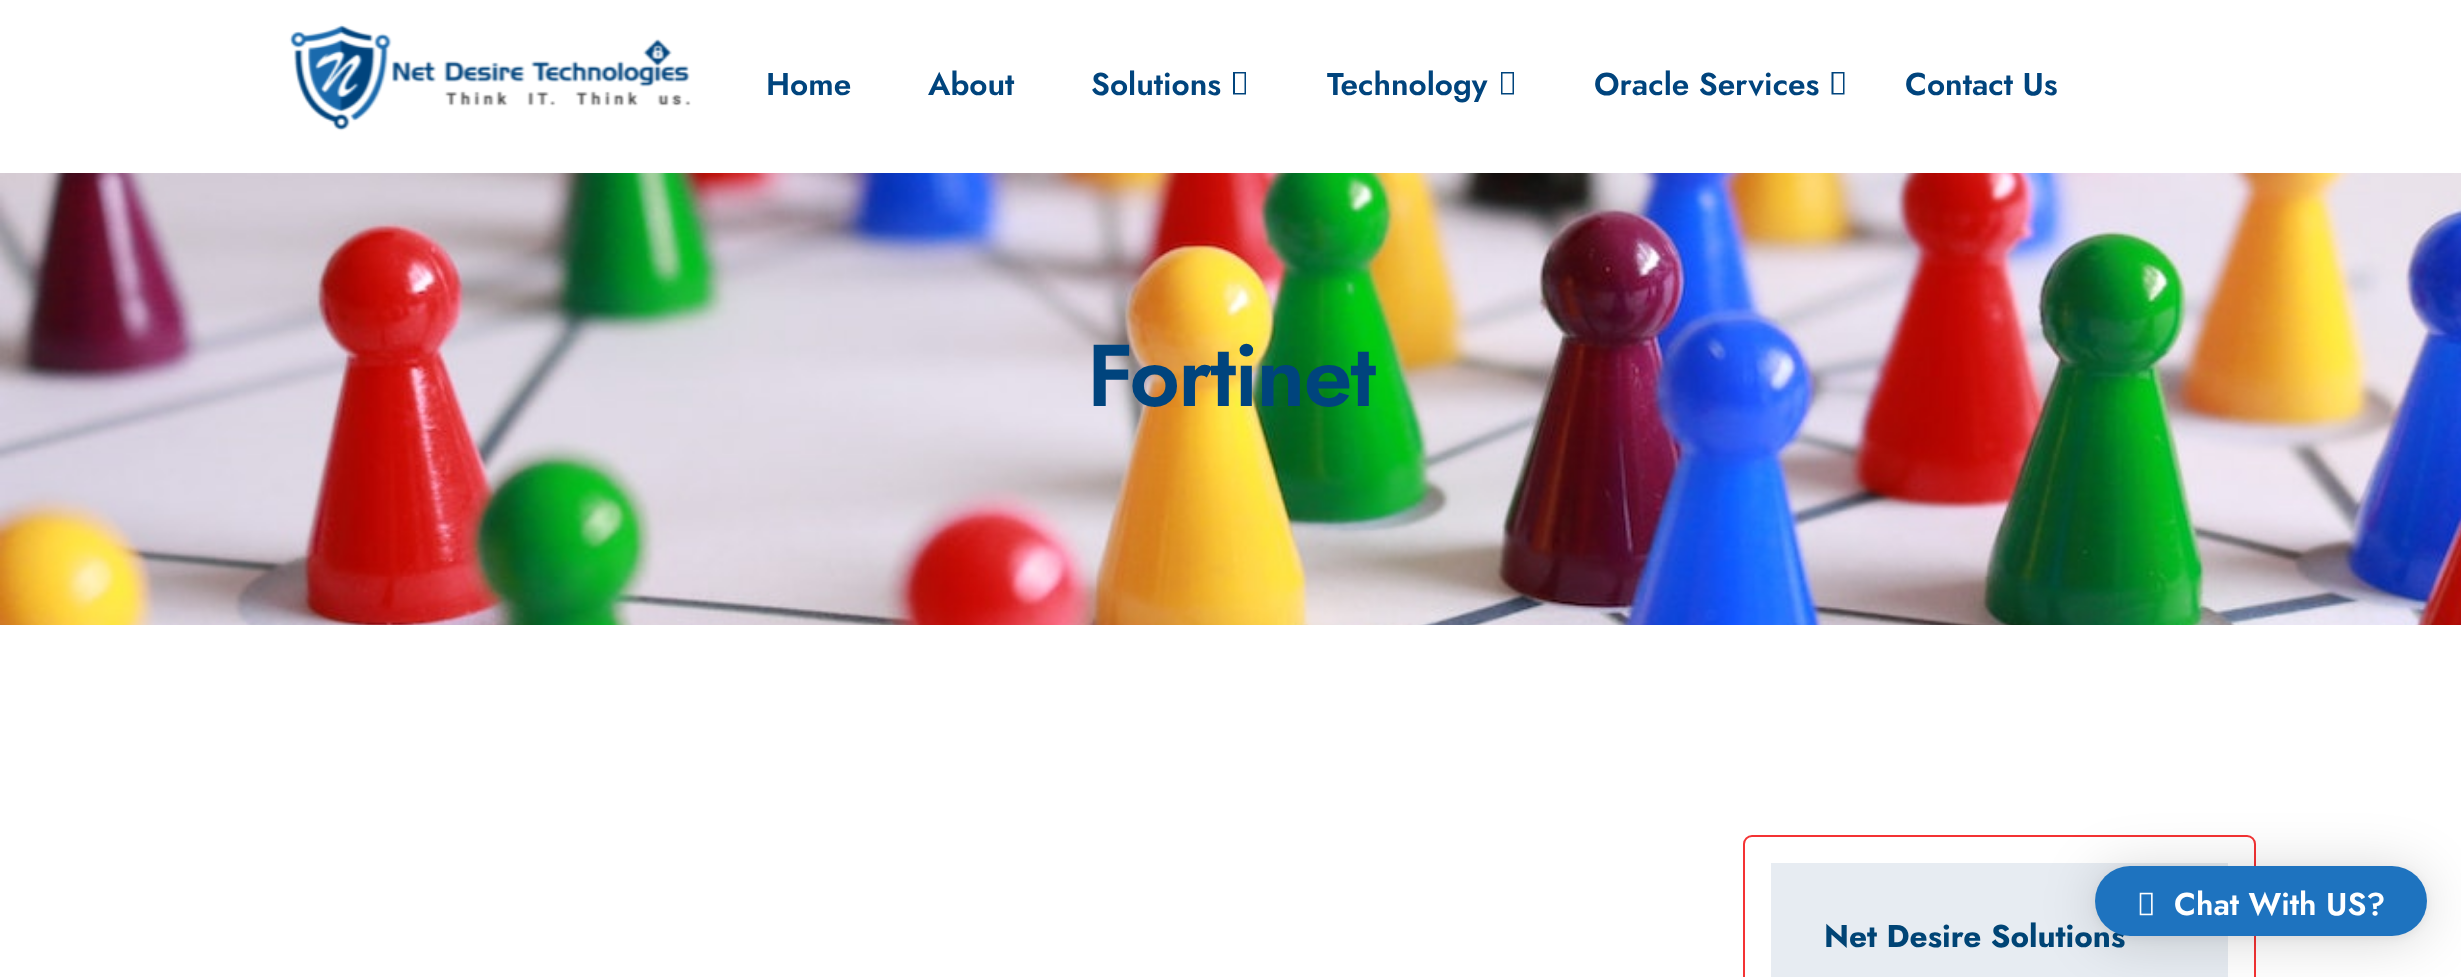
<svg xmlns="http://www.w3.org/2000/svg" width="2461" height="977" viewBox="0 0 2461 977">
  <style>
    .t1 { font: 600 31.5px Jost; fill: #00447d; }
    .t2 { font: 600 87.5px Jost; letter-spacing: -1.75px; fill: #00447d; }
    .t3 { font: bold 31.5px Jost; fill: #004475; }
    .t4 { font: 600 31.5px Jost; fill: #fff; }
  </style>
  <rect width="100%" height="100%" fill="#fff"/>
  <image x="289" y="24" width="402" height="107" href="images/1.png"/>
  <text x="766" y="95" class="t1">Home</text>
  <text x="928" y="95" class="t1">About</text>
  <text x="1091" y="95" class="t1">Solutions</text>
  <path d="M1233 94.5V72H1246V94.5ZM1235 93H1244.5V73.5H1235Z" fill="#00447d"/>
  <text x="1327" y="95" class="t1">Technology</text>
  <path d="M1501 94.5V72H1514V94.5ZM1502.5 93H1512.5V73.5H1502.5Z" fill="#00447d"/>
  <text x="1594" y="95" class="t1">Oracle Services</text>
  <path d="M1831.5 94.5V72H1844.5V94.5ZM1833.5 93H1843V73.5H1833.5Z" fill="#00447d"/>
  <text x="1905" y="95" class="t1">Contact Us</text>
  <image x="0" y="173" width="2461" height="452" href="images/2.png"/>
  <text x="1087" y="406" class="t2">Fortinet</text>
  <rect x="1744" y="836" width="511" height="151" rx="8" fill="none" stroke="#f43334" stroke-width="2"/>
  <rect x="1771" y="863" width="457" height="114" fill="#e7ecf2"/>
  <rect x="2095" y="870" width="332" height="70" rx="35" fill="#00000029" filter="blur(28px)"/>
  <rect x="2095" y="868" width="332" height="70" rx="35" fill="#0000000f" filter="blur(5px)"/>
  <text x="1824" y="947" class="t3">Net Desire Solutions</text>
  <rect x="2095" y="866" width="332" height="70" rx="35" fill="#1e73bf"/>
  <image x="2139" y="892" width="14" height="24" href="images/3.png"/>
  <text x="2174" y="915" class="t4">Chat With US?</text>
</svg>
